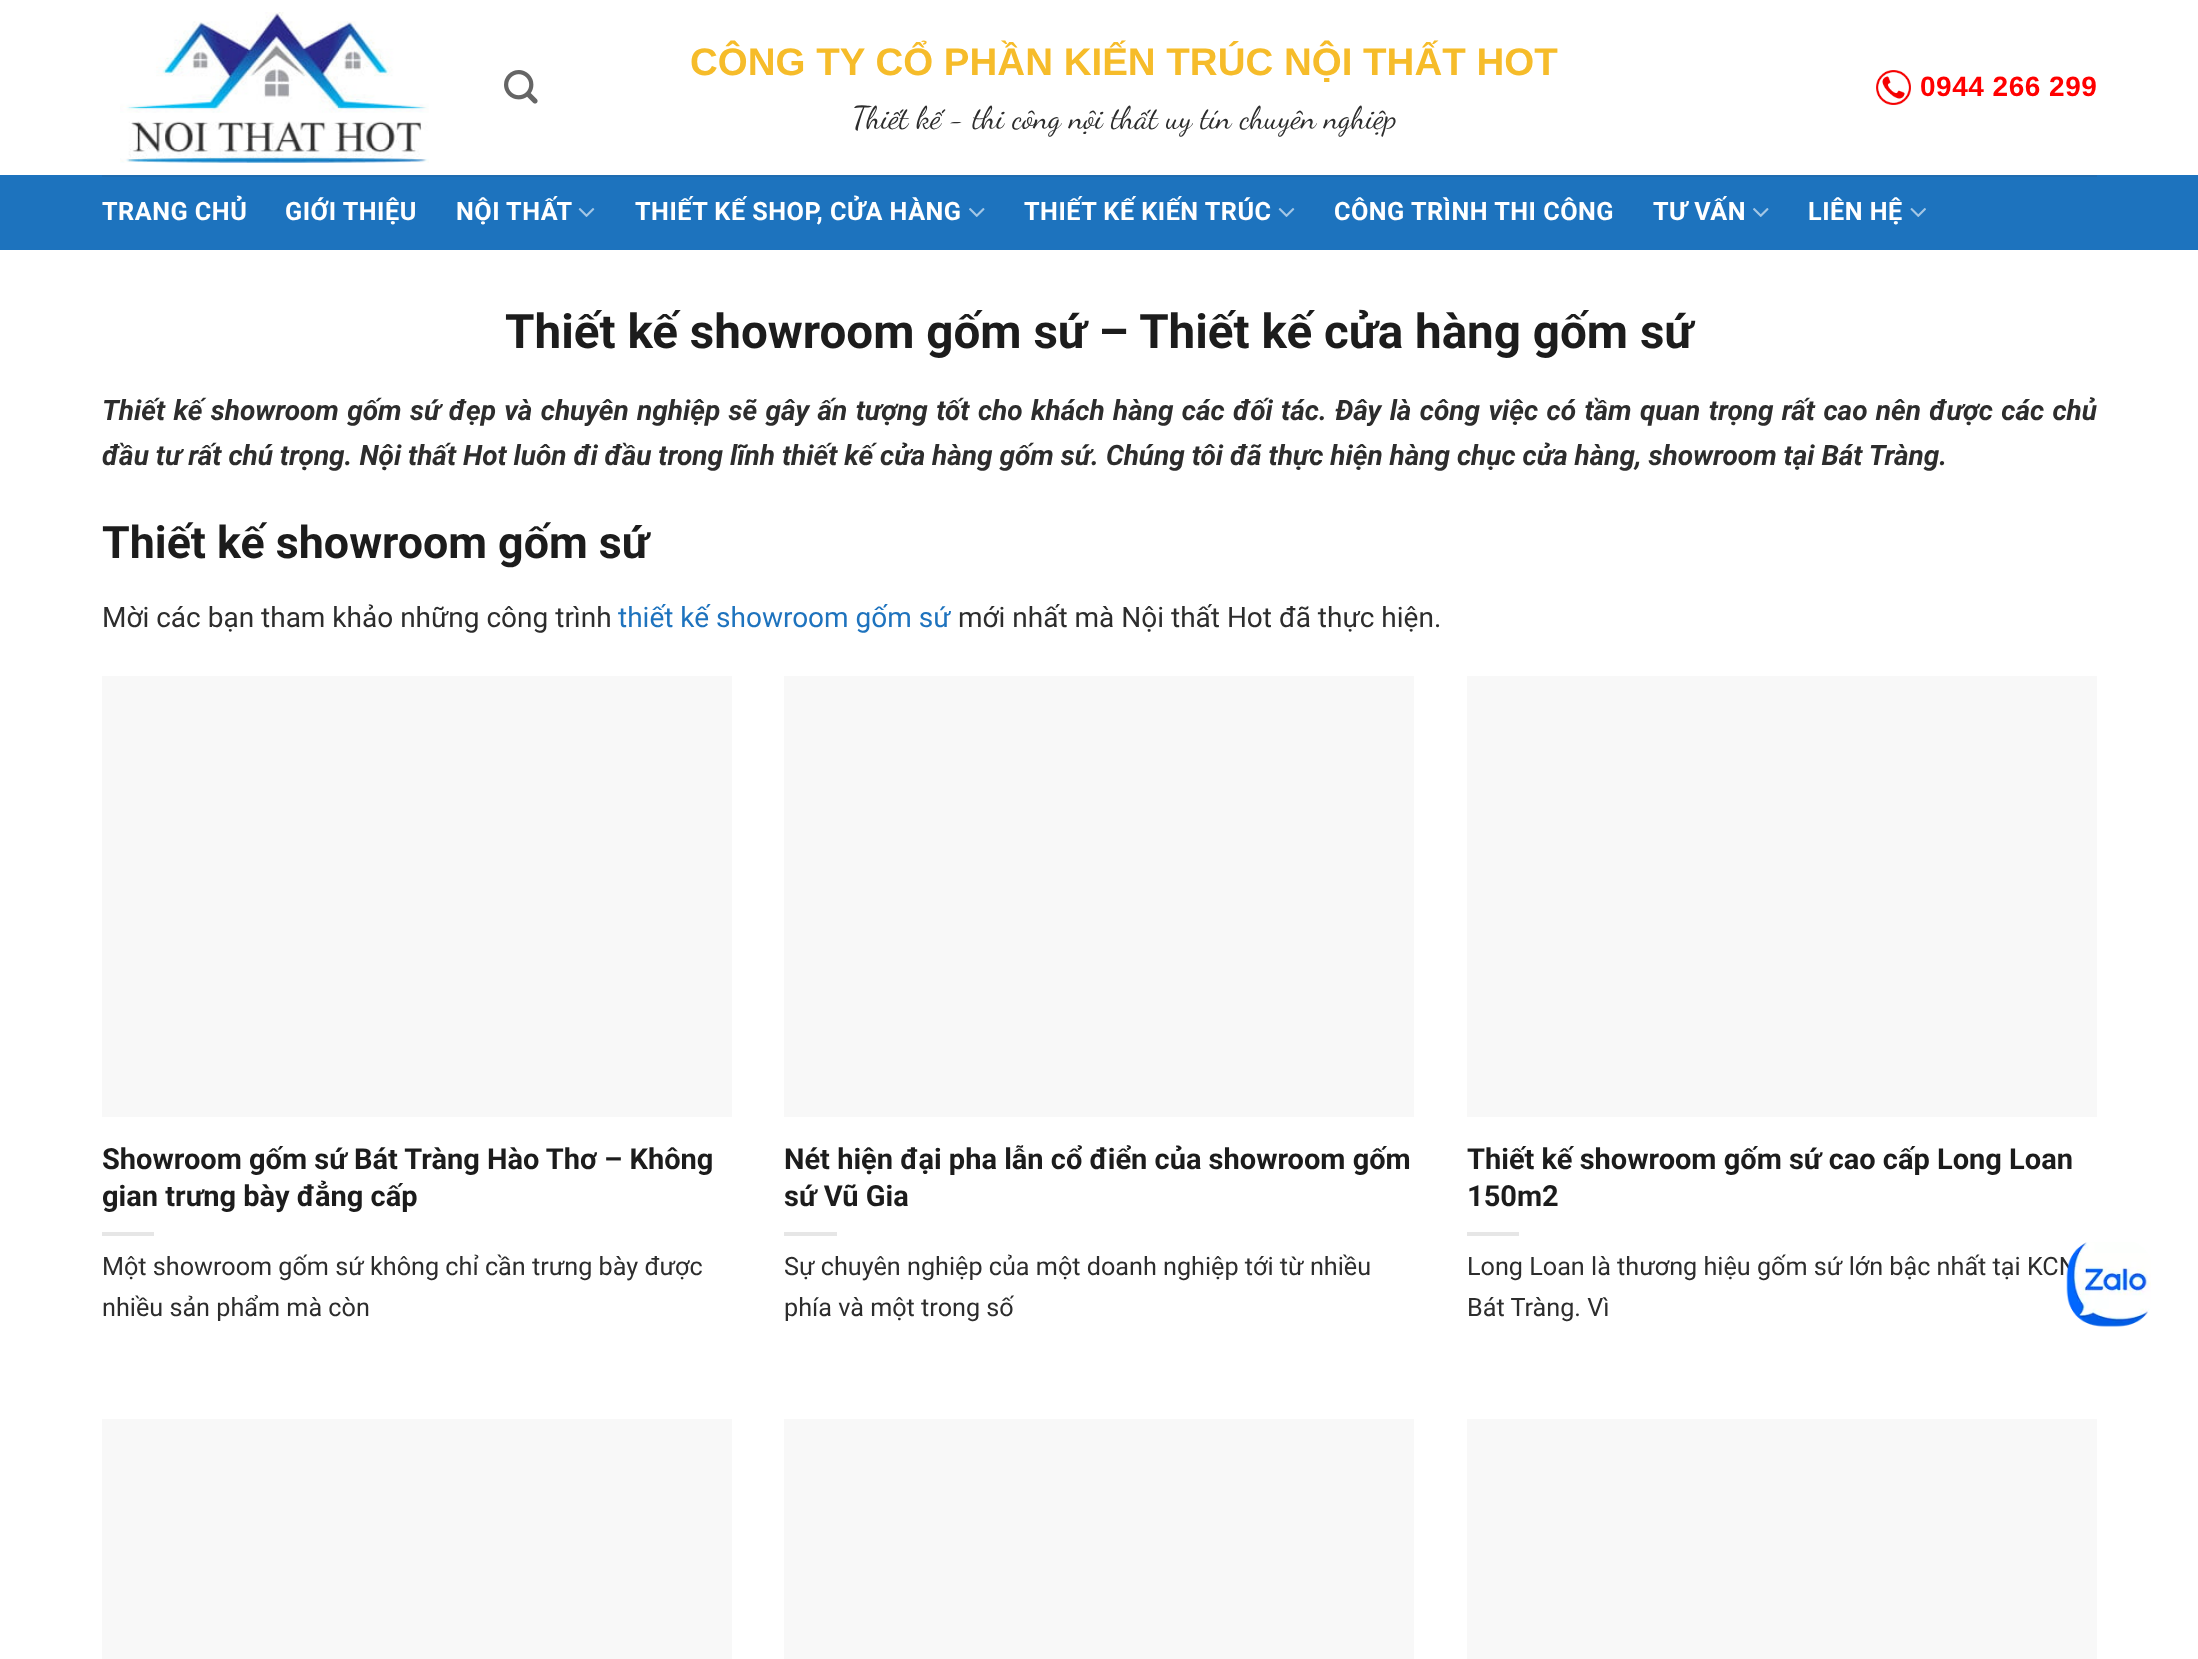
<svg xmlns="http://www.w3.org/2000/svg" width="2198" height="1659" viewBox="0 0 2198 1659">
  <style>
    .t1 { font: bold 38.5px Liberation Sans; fill: #f6bc2a; }
    .t2 { font: 31.5px Dancing Script; fill: #2d2d2d; }
    .t3 { font: bold 28px Liberation Sans; letter-spacing: 0.5px; fill: #f00; }
    .t4 { font: bold 25.2px Roboto; letter-spacing: 0.5px; fill: #fff; }
    .t5 { font: bold 47.6px Roboto; fill: #1c1c1c; }
    .t6 { font: italic bold 28px Roboto; fill: #2d2d2d; }
    .t7 { font: bold 44.75px Roboto; fill: #1c1c1c; }
    .t8 { font: 28px Roboto; fill: #2d2d2d; }
    .t9 { font: 28px Roboto; fill: #1e73be; }
    .t10 { font: bold 29px Roboto; fill: #1c1c1c; }
    .t11 { font: 25.2px Roboto; fill: #2d2d2d; }
  </style>
  <rect width="100%" height="100%" fill="#fff"/>
  <image x="120" y="12" width="309" height="151" href="images/1.png"/>
  <image x="504" y="70" width="34" height="34" href="images/2.png"/>
  <text x="690" y="75" class="t1">CÔNG TY CỔ PHẦN KIẾN TRÚC NỘI THẤT HOT</text>
  <text x="852" y="128" class="t2">Thiết kế - thi công nội thất uy tín chuyên nghiệp</text>
  <image x="1876" y="70" width="35" height="35" href="images/3.png"/>
  <text x="1920" y="96" class="t3">0944 266 299</text>
  <rect x="0" y="175" width="2198" height="75" fill="#1d73be"/>
  <rect x="102" y="175" width="1995" height="2" fill="#1f6cb0"/>
  <text x="102" y="220" class="t4">TRANG CHỦ</text>
  <text x="285" y="220" class="t4">GIỚI THIỆU</text>
  <text x="456" y="220" class="t4">NỘI THẤT</text>
  <image x="578" y="208" width="17" height="9" href="images/4.png"/>
  <text x="635" y="220" class="t4">THIẾT KẾ SHOP, CỬA HÀNG</text>
  <image x="969" y="208" width="16" height="9" href="images/5.png"/>
  <text x="1024" y="220" class="t4">THIẾT KẾ KIẾN TRÚC</text>
  <image x="1278" y="208" width="17" height="9" href="images/4.png"/>
  <text x="1334" y="220" class="t4">CÔNG TRÌNH THI CÔNG</text>
  <text x="1653" y="220" class="t4">TƯ VẤN</text>
  <image x="1753" y="208" width="16" height="9" href="images/5.png"/>
  <text x="1808" y="220" class="t4">LIÊN HỆ</text>
  <image x="1910" y="208" width="16" height="9" href="images/6.png"/>
  <text x="505" y="348" class="t5">Thiết kế showroom gốm sứ – Thiết kế cửa hàng gốm sứ</text>
  <text x="102" y="420" word-spacing="1.5" class="t6">Thiết kế showroom gốm sứ đẹp và chuyên nghiệp sẽ gây ấn tượng tốt cho khách hàng các đối tác. Đây là công việc có tầm quan trọng rất cao nên được các chủ</text>
  <text x="102" y="465" class="t6">đầu tư rất chú trọng. Nội thất Hot luôn đi đầu trong lĩnh thiết kế cửa hàng gốm sứ. Chúng tôi đã thực hiện hàng chục cửa hàng, showroom tại Bát Tràng.</text>
  <text x="102" y="558" class="t7">Thiết kế showroom gốm sứ</text>
  <text x="102" y="627" class="t8">Mời các bạn tham khảo những công trình</text>
  <text x="618" y="627" class="t9">thiết kế showroom gốm sứ</text>
  <text x="958" y="627" class="t8">mới nhất mà Nội thất Hot đã thực hiện.</text>
  <rect x="102" y="676" width="630" height="441" fill="#f8f8f8"/>
  <text x="102" y="1169" class="t10">Showroom gốm sứ Bát Tràng Hào Thơ – Không</text>
  <text x="102" y="1206" class="t10">gian trưng bày đẳng cấp</text>
  <rect x="102" y="1232" width="52" height="4" fill="#e6e6e6"/>
  <text x="102" y="1275" class="t11">Một showroom gốm sứ không chỉ cần trưng bày được</text>
  <text x="102" y="1316" class="t11">nhiều sản phẩm mà còn</text>
  <rect x="784" y="676" width="630" height="441" fill="#f8f8f8"/>
  <text x="784" y="1169" class="t10">Nét hiện đại pha lẫn cổ điển của showroom gốm</text>
  <text x="784" y="1206" class="t10">sứ Vũ Gia</text>
  <rect x="784" y="1232" width="53" height="4" fill="#e6e6e6"/>
  <text x="784" y="1275" class="t11">Sự chuyên nghiệp của một doanh nghiệp tới từ nhiều</text>
  <text x="784" y="1316" class="t11">phía và một trong số</text>
  <rect x="1467" y="676" width="630" height="441" fill="#f8f8f8"/>
  <text x="1467" y="1169" class="t10">Thiết kế showroom gốm sứ cao cấp Long Loan</text>
  <text x="1467" y="1206" class="t10">150m2</text>
  <rect x="1467" y="1232" width="52" height="4" fill="#e6e6e6"/>
  <text x="1467" y="1275" class="t11">Long Loan là thương hiệu gốm sứ lớn bậc nhất tại KCN</text>
  <text x="1467" y="1316" class="t11">Bát Tràng. Vì</text>
  <rect x="102" y="1419" width="630" height="240" fill="#f8f8f8"/>
  <rect x="784" y="1419" width="630" height="240" fill="#f8f8f8"/>
  <rect x="1467" y="1419" width="630" height="240" fill="#f8f8f8"/>
  <image x="2066" y="1242" width="85" height="85" href="images/7.png"/>
</svg>
